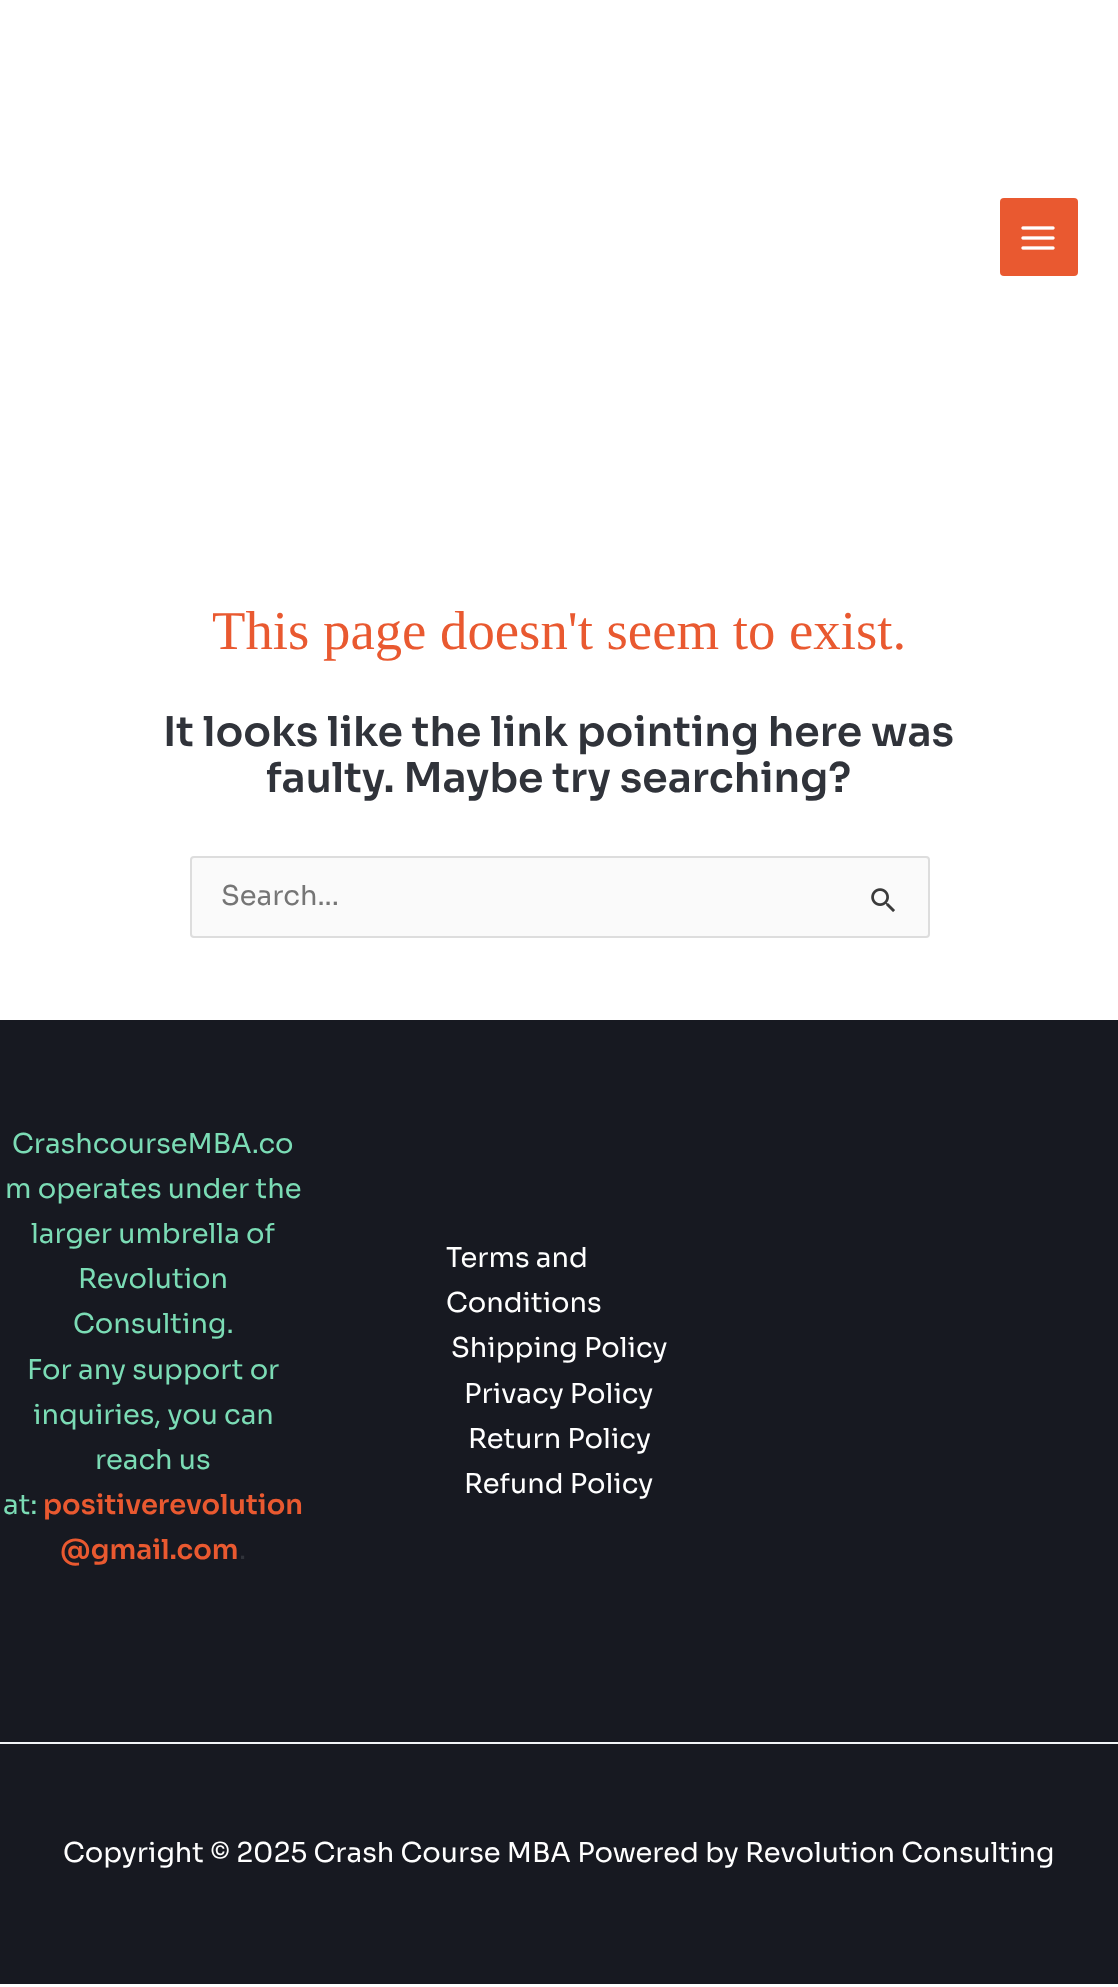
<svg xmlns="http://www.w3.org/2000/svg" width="1118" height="1987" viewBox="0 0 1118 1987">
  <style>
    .t1 { font: 54.75px Liberation Serif; fill: #e95930; }
    .t2 { font: 600 41px Sora; fill: #30333a; }
    .t3 { font: 27.35px Sora; fill: #757575; }
    .t4 { font: 27.35px Sora; fill: #7bdcb5; }
    .t5 { font: 600 27.35px Sora; fill: #e95930; }
    .t6 { font: 27.35px Sora; fill: #30333a; }
    .t7 { font: 27.35px Sora; fill: #fff; }
  </style>
  <rect width="100%" height="100%" fill="#fff"/>
  <rect x="1000" y="198" width="78" height="78" rx="4" fill="#e95930"/>
  <image x="1021" y="226" width="34" height="24" href="images/1.png"/>
  <text x="212" y="649" class="t1">This page doesn't seem to exist.</text>
  <text x="163" y="746" class="t2">It looks like the link pointing here was</text>
  <text x="266" y="792" class="t2">faulty. Maybe try searching?</text>
  <rect x="191" y="857" width="738" height="80" rx="3" fill="#fafafa" stroke="#ddd" stroke-width="2"/>
  <text x="221" y="905" class="t3">Search...</text>
  <image x="871" y="888" width="24" height="24" href="images/2.png"/>
  <rect x="0" y="1020" width="1118" height="722" fill="#171921"/>
  <text x="12" y="1153" class="t4">CrashcourseMBA.co</text>
  <text x="5" y="1198" class="t4">m operates under the</text>
  <text x="31" y="1243" class="t4">larger umbrella of</text>
  <text x="78" y="1288" class="t4">Revolution</text>
  <text x="73" y="1333" class="t4">Consulting.</text>
  <text x="27" y="1379" class="t4">For any support or</text>
  <text x="33" y="1424" class="t4">inquiries, you can</text>
  <text x="95" y="1469" class="t4">reach us</text>
  <text x="3" y="1514" class="t4">at:</text>
  <text x="43" y="1514" class="t5">positiverevolution</text>
  <text x="60" y="1559" class="t5">@gmail.com</text>
  <text x="239" y="1559" class="t6">.</text>
  <text x="446" y="1267" class="t7">Terms and</text>
  <text x="446" y="1312" class="t7">Conditions</text>
  <text x="451" y="1357" class="t7">Shipping Policy</text>
  <text x="464" y="1403" class="t7">Privacy Policy</text>
  <text x="468" y="1448" class="t7">Return Policy</text>
  <text x="464" y="1493" class="t7">Refund Policy</text>
  <rect x="0" y="1744" width="1118" height="240" fill="#171921"/>
  <rect x="0" y="1742" width="1118" height="2" fill="#f2f5f7"/>
  <text x="63" y="1862" class="t7">Copyright © 2025 Crash Course MBA Powered by Revolution Consulting</text>
</svg>
